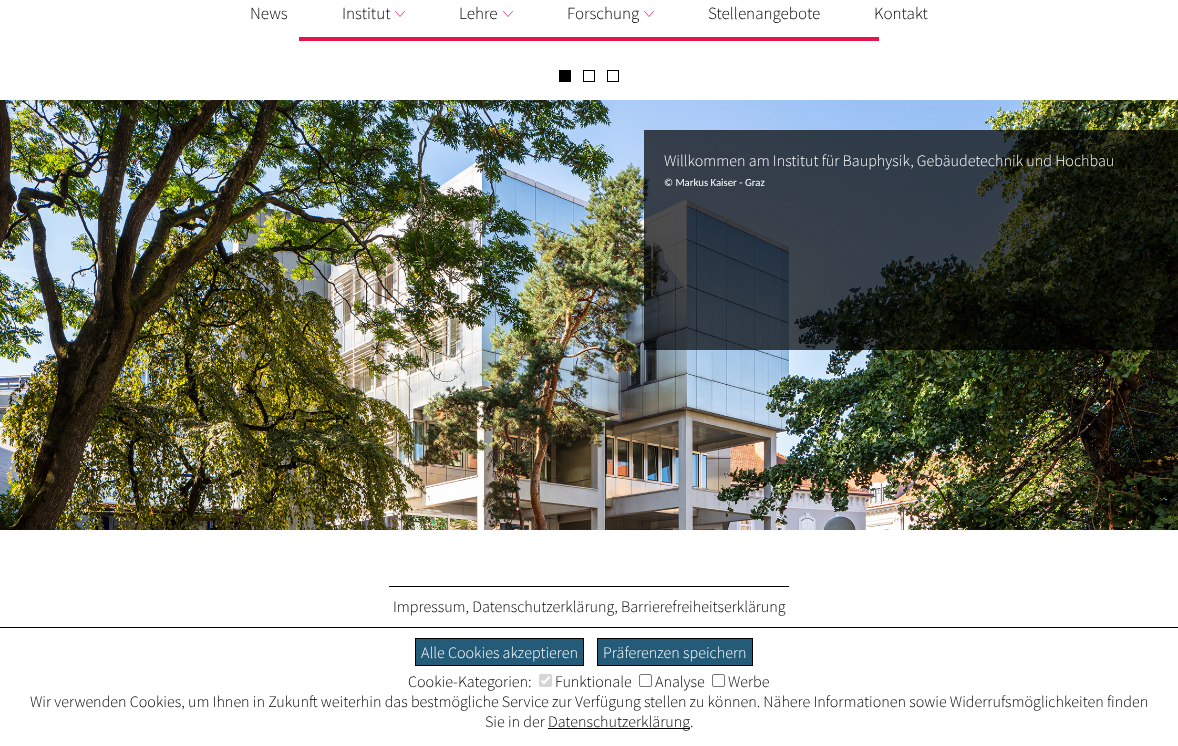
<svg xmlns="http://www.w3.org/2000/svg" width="1178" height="746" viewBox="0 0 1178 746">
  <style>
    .t1 { font: 300 17px Source Sans Pro; fill: #000; }
    .t2 { font: 300 16px Source Sans Pro; fill: #fff; }
    .t3 { font: 10.75px Carlito; fill: #fff; }
    .t4 { font: 300 16px Source Sans Pro; fill: #000; }
  </style>
  <rect width="100%" height="100%" fill="#fff"/>
  <text x="250" y="19" class="t1">News</text>
  <text x="342" y="19" class="t1">Institut</text>
  <path d="M395.5 11.5L400 16.5L404.5 11.5" fill="none" stroke="#e4154b" stroke-width="0.8" stroke-linecap="round" stroke-linejoin="round"/>
  <text x="459" y="19" class="t1">Lehre</text>
  <path d="M503.5 11.5L508 16.5L512.5 11.5" fill="none" stroke="#e4154b" stroke-width="0.8" stroke-linecap="round" stroke-linejoin="round"/>
  <text x="567" y="19" class="t1">Forschung</text>
  <path d="M644.5 11.5L649 16.5L653.5 11.5" fill="none" stroke="#e4154b" stroke-width="0.8" stroke-linecap="round" stroke-linejoin="round"/>
  <text x="708" y="19" class="t1">Stellenangebote</text>
  <text x="874" y="19" class="t1">Kontakt</text>
  <rect x="299" y="37" width="580" height="4" fill="#e4154b"/>
  <rect x="559" y="70" width="12" height="12" fill="#000"/>
  <rect x="583.5" y="70.5" width="11" height="11" fill="none" stroke="#000"/>
  <rect x="607.5" y="70.5" width="11" height="11" fill="none" stroke="#000"/>
  <image x="0" y="100" width="1178" height="430" href="images/1.png"/>
  <rect x="644" y="130" width="534" height="220" fill="#000000b3"/>
  <text x="664" y="166" class="t2">Willkommen am Institut für Bauphysik, Gebäudetechnik und Hochbau</text>
  <text x="664" y="186" class="t3">© Markus Kaiser - Graz</text>
  <rect x="389" y="586" width="400" height="1" fill="#000"/>
  <text x="393" y="612" class="t4">Impressum, Datenschutzerklärung, Barrierefreiheitserklärung</text>
  <rect x="0" y="627" width="1178" height="1" fill="#000"/>
  <rect x="415.5" y="638.5" width="168" height="27" fill="#245b78" stroke="#000"/>
  <text x="421" y="658" class="t2">Alle Cookies akzeptieren</text>
  <rect x="597.5" y="638.5" width="155" height="27" fill="#245b78" stroke="#000"/>
  <text x="603" y="658" class="t2">Präferenzen speichern</text>
  <text x="408" y="687" class="t4">Cookie-Kategorien:</text>
  <rect x="539" y="674" width="13" height="13" rx="2" fill="#d6d6d6"/>
  <path d="M541.5 680.5L544 683L549.5 676.5" fill="none" stroke="#fff" stroke-width="2.1"/>
  <text x="555" y="687" class="t4">Funktionale</text>
  <rect x="639.5" y="674.5" width="12" height="12" rx="1.5" fill="none" stroke="#767676"/>
  <text x="655" y="687" class="t4">Analyse</text>
  <rect x="712.5" y="674.5" width="12" height="12" rx="1.5" fill="none" stroke="#767676"/>
  <text x="728" y="687" class="t4">Werbe</text>
  <text x="30" y="707" class="t4">Wir verwenden Cookies, um Ihnen in Zukunft weiterhin das bestmögliche Service zur Verfügung stellen zu können. Nähere Informationen sowie Widerrufsmöglichkeiten finden</text>
  <text x="485" y="727" class="t4">Sie in der</text>
  <rect x="548" y="728" width="142" height="1" fill="#000"/>
  <text x="548" y="727" class="t4">Datenschutzerklärung.</text>
</svg>
